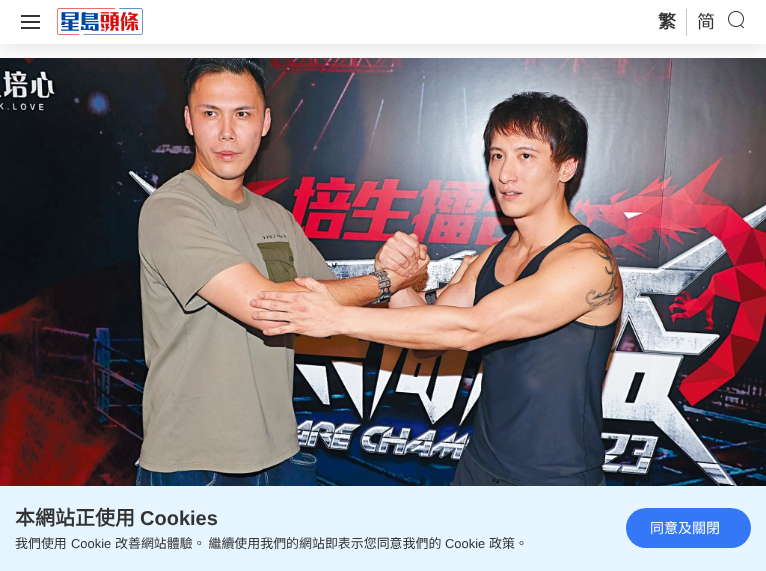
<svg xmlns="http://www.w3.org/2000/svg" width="766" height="571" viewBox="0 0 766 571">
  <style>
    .t1 { font: bold 18px Noto Sans CJK HK; fill: #333; }
    .t2 { font: 18px Noto Sans CJK HK; fill: #333; }
    .t3 { font: bold 20px Noto Sans CJK HK; fill: #333; }
    .t4 { font: bold 20px Liberation Sans; fill: #333; }
    .t5 { font: 12.95px Noto Sans CJK HK; fill: #333; }
    .t6 { font: 12.95px Liberation Sans; fill: #333; }
    .t7 { font: 14px Noto Sans CJK HK; fill: #fff; }
  </style>
  <defs>
    <clipPath id="clip1"><rect x="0" y="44" width="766" height="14"/></clipPath>
  </defs>
  <rect width="100%" height="100%" fill="#fff"/>
  <image x="0" y="58" width="766" height="428" href="images/3.png"/>
  <g clip-path="url(#clip1)">
    <rect x="0" y="1" width="766" height="44" fill="#00000026" filter="blur(12px)"/>
  </g>
  <rect x="21" y="15" width="19" height="2" fill="#333"/>
  <rect x="21" y="21" width="19" height="2" fill="#333"/>
  <rect x="21" y="27" width="19" height="2" fill="#333"/>
  <image x="56" y="8" width="87" height="27" href="images/1.png"/>
  <rect x="686" y="9" width="1" height="27" fill="#c7c7c7"/>
  <text x="658" y="28" class="t1">繁</text>
  <text x="697" y="28" class="t2">简</text>
  <image x="728" y="11" width="16" height="18" href="images/2.png"/>
  <rect x="0" y="486" width="766" height="85" fill="#e6f5ff"/>
  <text x="15" y="525" class="t3">本網站正使用</text>
  <text x="140" y="525" class="t4">Cookies</text>
  <text x="15" y="548" class="t5">我們使用</text>
  <text x="71" y="548" class="t6">Cookie</text>
  <text x="115" y="548" class="t5">改善網站體驗。 繼續使用我們的網站即表示您同意我們的</text>
  <text x="445" y="548" class="t6">Cookie</text>
  <text x="489" y="548" class="t5">政策。</text>
  <rect x="626" y="508" width="125" height="40" rx="20" fill="#3478f7"/>
  <text x="650" y="533" class="t7">同意及關閉</text>
</svg>
